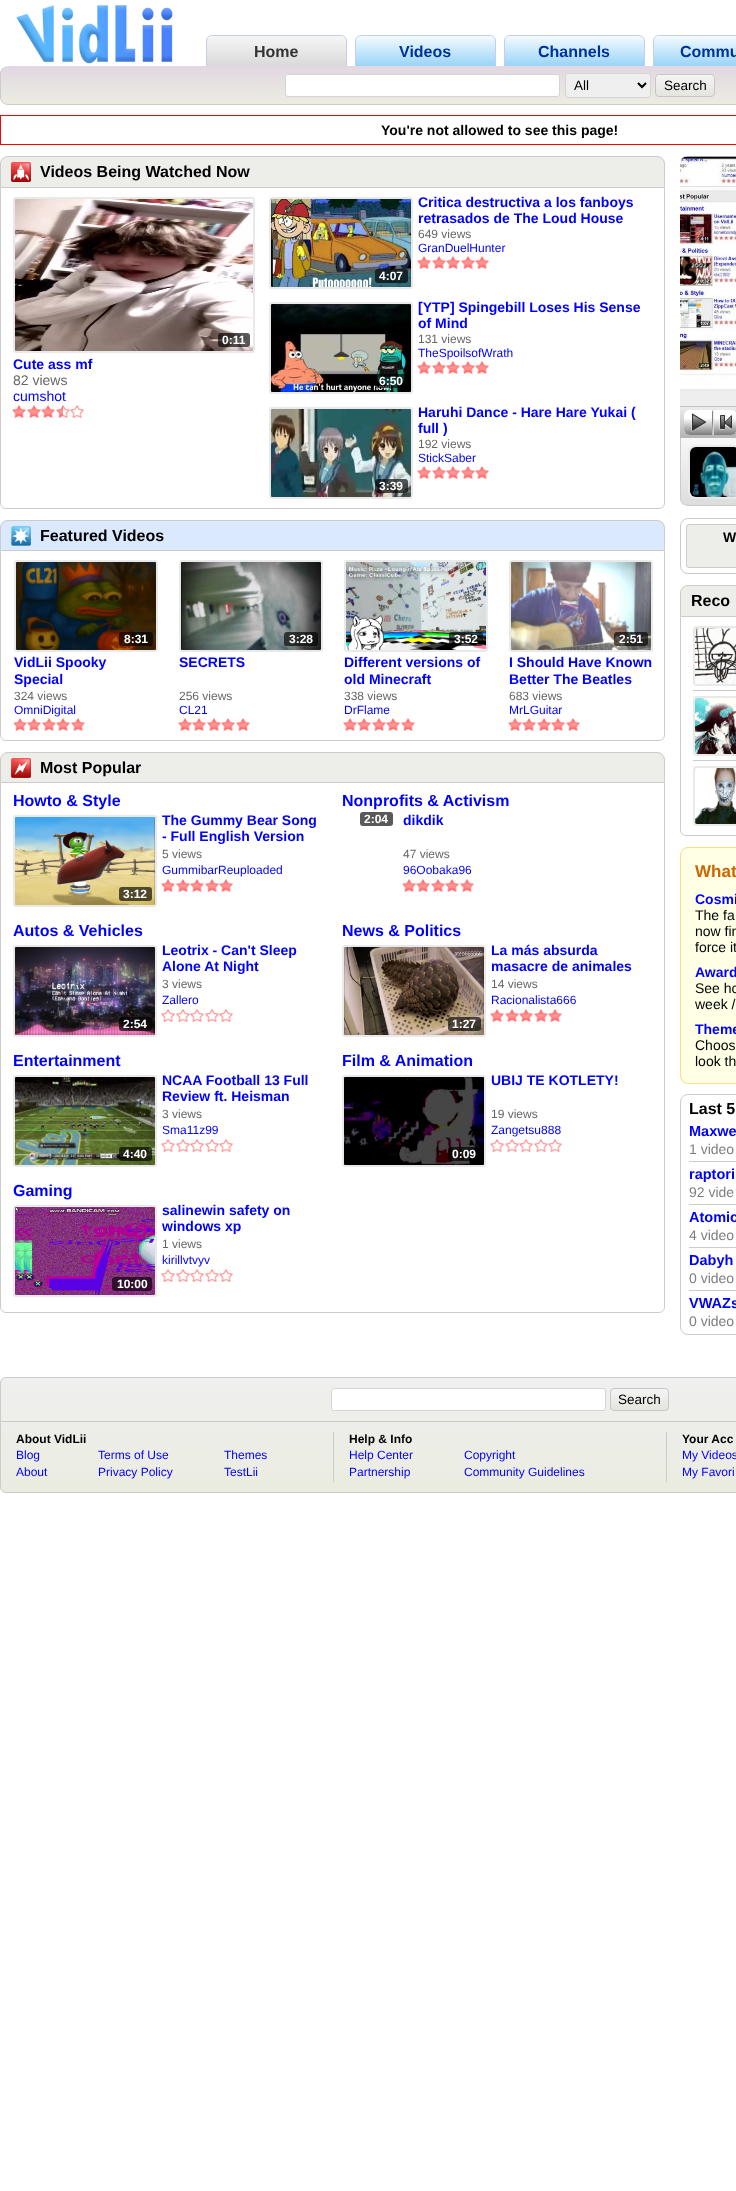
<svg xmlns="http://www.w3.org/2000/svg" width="736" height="2191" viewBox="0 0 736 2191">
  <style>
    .t1 { font: bold 16px Liberation Sans; fill: #333; }
    .t2 { font: bold 16px Liberation Sans; fill: #039; }
    .t3 { font: 13.5px Liberation Sans; fill: #000; }
    .t4 { font: bold 14px Liberation Sans; fill: #000; }
    .t5 { font: bold 16px Liberation Sans; fill: #000; }
    .t6 { font: bold 12px Liberation Sans; fill: #fff; }
    .t7 { font: bold 14px Liberation Sans; fill: #00f; }
    .t8 { font: 14px Liberation Sans; fill: #666; }
    .t9 { font: 14px Liberation Sans; fill: #00f; }
    .t10 { font: 12px Liberation Sans; fill: #666; }
    .t11 { font: 12px Liberation Sans; fill: #00f; }
    .t12 { font: bold 16px Liberation Sans; fill: #00f; }
    .t13 { font: bold 17px Liberation Sans; fill: #c60; }
    .t14 { font: 14px Liberation Sans; fill: #000; }
    .t15 { font: bold 14.5px Liberation Sans; fill: #00f; }
    .t16 { font: 14px Liberation Sans; fill: #7e7e7e; }
    .t17 { font: bold 12px Liberation Sans; fill: #000; }
  </style>
  <defs>
    <clipPath id="clip1"><path d="M212 35H341C344.5 35 347 37.5 347 41V67H206V41C206 37.5 208.5 35 212 35Z"/></clipPath>
    <linearGradient id="g1" gradientUnits="userSpaceOnUse" x1="277" y1="36" x2="277" y2="67"><stop offset="0" stop-color="#f6f6f6"/><stop offset="1" stop-color="#d8d8d8"/></linearGradient>
    <clipPath id="clip2"><path d="M361 35H490C493.5 35 496 37.5 496 41V67H355V41C355 37.5 357.5 35 361 35Z"/></clipPath>
    <linearGradient id="g2" gradientUnits="userSpaceOnUse" x1="426" y1="36" x2="426" y2="67"><stop offset="0" stop-color="#f4fbff"/><stop offset="1" stop-color="#96d3f7"/></linearGradient>
    <clipPath id="clip3"><path d="M510 35H639C642.5 35 645 37.5 645 41V67H504V41C504 37.5 506.5 35 510 35Z"/></clipPath>
    <linearGradient id="g3" gradientUnits="userSpaceOnUse" x1="575" y1="36" x2="575" y2="67"><stop offset="0" stop-color="#f4fbff"/><stop offset="1" stop-color="#96d3f7"/></linearGradient>
    <clipPath id="clip4"><path d="M659 35H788C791.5 35 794 37.5 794 41V67H653V41C653 37.5 655.5 35 659 35Z"/></clipPath>
    <linearGradient id="g4" gradientUnits="userSpaceOnUse" x1="724" y1="36" x2="724" y2="67"><stop offset="0" stop-color="#f4fbff"/><stop offset="1" stop-color="#96d3f7"/></linearGradient>
    <clipPath id="clip5"><rect x="0" y="66" width="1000" height="39" rx="8"/></clipPath>
    <linearGradient id="g5" gradientUnits="userSpaceOnUse" x1="500" y1="66" x2="500" y2="104"><stop offset="0.01" stop-color="#e2d7e2"/><stop offset="1" stop-color="#ecede1"/></linearGradient>
    <clipPath id="clip6"><rect x="655" y="74" width="60" height="23" rx="4"/></clipPath>
    <linearGradient id="g6" gradientUnits="userSpaceOnUse" x1="685" y1="75" x2="685" y2="96"><stop offset="0" stop-color="#f4f4f4"/><stop offset="1" stop-color="#e4e5de"/></linearGradient>
    <clipPath id="clip7"><path d="M680 438H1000V498C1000 502.5 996.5 506 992 506H688C683.5 506 680 502.5 680 498Z"/></clipPath>
    <linearGradient id="g7" gradientUnits="userSpaceOnUse" x1="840" y1="438" x2="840" y2="505"><stop offset="0.03" stop-color="#f7f7f7"/><stop offset="1" stop-color="#ddd"/></linearGradient>
    <clipPath id="clip8"><rect x="0" y="1377" width="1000" height="116" rx="6"/></clipPath>
    <linearGradient id="g8" gradientUnits="userSpaceOnUse" x1="500" y1="1378" x2="500" y2="1492"><stop offset="0" stop-color="#efefef"/><stop offset="1" stop-color="#ebece0"/></linearGradient>
    <clipPath id="clip9"><rect x="610" y="1388" width="59" height="23" rx="4"/></clipPath>
    <linearGradient id="g9" gradientUnits="userSpaceOnUse" x1="640" y1="1389" x2="640" y2="1410"><stop offset="0" stop-color="#f4f4f4"/><stop offset="1" stop-color="#e4e5de"/></linearGradient>
  </defs>
  <rect width="100%" height="100%" fill="#fff"/>
  <image x="16" y="5" width="157" height="59" href="images/1.png"/>
  <g clip-path="url(#clip1)">
    <rect x="206" y="36" width="141" height="30" fill="url(#g1)"/>
  </g>
  <path d="M212 35H341C344 35 347 38 347 41V67H206V41C206 38 209 35 212 35ZM212 36H341C344 36 346 38 346 41V67H207V41C207 38 209 36 212 36Z" fill="#c2cfec" fill-rule="evenodd"/>
  <text x="254" y="57" class="t1">Home</text>
  <g clip-path="url(#clip2)">
    <rect x="355" y="36" width="141" height="30" fill="url(#g2)"/>
  </g>
  <path d="M361 35H490C493 35 496 38 496 41V67H355V41C355 38 358 35 361 35ZM361 36H490C493 36 495 38 495 41V67H356V41C356 38 358 36 361 36Z" fill="#c2cfec" fill-rule="evenodd"/>
  <text x="399" y="57" class="t2">Videos</text>
  <g clip-path="url(#clip3)">
    <rect x="504" y="36" width="141" height="30" fill="url(#g3)"/>
  </g>
  <path d="M510 35H639C642 35 645 38 645 41V67H504V41C504 38 507 35 510 35ZM510 36H639C642 36 644 38 644 41V67H505V41C505 38 507 36 510 36Z" fill="#c2cfec" fill-rule="evenodd"/>
  <text x="538" y="57" class="t2">Channels</text>
  <g clip-path="url(#clip4)">
    <rect x="653" y="36" width="83" height="30" fill="url(#g4)"/>
  </g>
  <path d="M659 35H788C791 35 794 38 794 41V67H653V41C653 38 656 35 659 35ZM659 36H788C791 36 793 38 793 41V67H654V41C654 38 656 36 659 36Z" fill="#c2cfec" fill-rule="evenodd"/>
  <text x="680" y="57" class="t2">Commu</text>
  <g clip-path="url(#clip5)">
    <path d="M8 66H736C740.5 66 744 69.5 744 74V104H0V74C0 69.5 3.5 66 8 66Z" fill="url(#g5)"/>
  </g>
  <path d="M8 66H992C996 66 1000 70 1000 74V97C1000 101 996 105 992 105H8C4 105 0 101 0 97V74C0 70 4 66 8 66ZM8 66H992C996 66 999 70 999 74V97C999 101 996 104 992 104H8C4 104 1 101 1 97V74C1 70 4 66 8 66Z" fill="#ccc" fill-rule="evenodd"/>
  <rect x="285.5" y="74.5" width="274" height="22" rx="2.5" fill="#fff" stroke="#d5d5d5"/>
  <rect x="565.5" y="73.5" width="85" height="24" rx="2.5" fill="#efefef" stroke="#d5d5d5"/>
  <path d="M638 83L642 87L646 83" fill="none" stroke="#000" stroke-width="2"/>
  <text x="574" y="90" class="t3">All</text>
  <g clip-path="url(#clip6)">
    <rect x="655" y="75" width="60" height="21" fill="url(#g6)"/>
  </g>
  <rect x="655.5" y="74.5" width="59" height="22" rx="3.5" fill="none" stroke="#c7c7c7"/>
  <text x="664" y="90" class="t3">Search</text>
  <rect x="0.5" y="115.5" width="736" height="29" fill="none" stroke="#f00"/>
  <text x="381" y="135" class="t4">You're not allowed to see this page!</text>
  <path d="M8 156H657C661.5 156 665 159.5 665 164V187H0V164C0 159.5 3.5 156 8 156Z" fill="#edede9"/>
  <path d="M8 156H657C661 156 665 160 665 164V187H0V164C0 160 4 156 8 156ZM8 157H657C661 157 664 160 664 164V187H1V164C1 160 4 157 8 157Z" fill="#ccc" fill-rule="evenodd"/>
  <image x="11" y="162" width="20" height="20" href="images/2.png"/>
  <text x="40" y="177" class="t5">Videos Being Watched Now</text>
  <path d="M.5 187.5H664.5V503C664.5 506 662 508.5 659 508.5H6C3 508.5 .5 506 .5 503Z" fill="none" stroke="#ccc"/>
  <rect x="14" y="198" width="240" height="154" rx="2" fill="none" stroke="#e9e9e9" stroke-width="2"/>
  <image x="15" y="199" width="238" height="152" href="images/3.png"/>
  <rect x="218" y="333" width="32" height="14" rx="3" fill="#000000a6"/>
  <text x="222" y="344" class="t6">0:11</text>
  <text x="13" y="369" class="t7">Cute ass mf</text>
  <text x="13" y="385" class="t8">82 views</text>
  <text x="13" y="401" class="t9">cumshot</text>
  <image x="12" y="405" width="14" height="13" href="images/4.png"/>
  <image x="27" y="405" width="14" height="13" href="images/5.png"/>
  <image x="41" y="405" width="14" height="13" href="images/5.png"/>
  <image x="56" y="405" width="14" height="13" href="images/6.png"/>
  <image x="70" y="405" width="14" height="13" href="images/7.png"/>
  <text x="418" y="207" class="t7">Critica destructiva a los fanboys</text>
  <text x="418" y="223" class="t7">retrasados de The Loud House</text>
  <text x="418" y="238" class="t10">649 views</text>
  <text x="418" y="252" class="t11">GranDuelHunter</text>
  <image x="417" y="256" width="14" height="13" href="images/8.png"/>
  <image x="432" y="256" width="14" height="13" href="images/5.png"/>
  <image x="446" y="256" width="14" height="13" href="images/8.png"/>
  <image x="461" y="256" width="14" height="13" href="images/8.png"/>
  <image x="475" y="256" width="14" height="13" href="images/8.png"/>
  <rect x="270" y="198" width="142" height="90" rx="2" fill="none" stroke="#e9e9e9" stroke-width="2"/>
  <image x="271" y="199" width="140" height="88" href="images/9.png"/>
  <rect x="375" y="269" width="33" height="14" rx="3" fill="#000000a6"/>
  <text x="379" y="280" class="t6">4:07</text>
  <text x="418" y="312" class="t7">[YTP] Spingebill Loses His Sense</text>
  <text x="418" y="328" class="t7">of Mind</text>
  <text x="418" y="343" class="t10">131 views</text>
  <text x="418" y="357" class="t11">TheSpoilsofWrath</text>
  <image x="417" y="361" width="14" height="13" href="images/10.png"/>
  <image x="432" y="361" width="14" height="13" href="images/11.png"/>
  <image x="446" y="361" width="14" height="13" href="images/10.png"/>
  <image x="461" y="361" width="14" height="13" href="images/10.png"/>
  <image x="475" y="361" width="14" height="13" href="images/10.png"/>
  <rect x="270" y="303" width="142" height="90" rx="2" fill="none" stroke="#e9e9e9" stroke-width="2"/>
  <image x="271" y="304" width="140" height="88" href="images/12.png"/>
  <rect x="375" y="374" width="33" height="14" rx="3" fill="#000000a6"/>
  <text x="379" y="385" class="t6">6:50</text>
  <text x="418" y="417" class="t7">Haruhi Dance - Hare Hare Yukai (</text>
  <text x="418" y="433" class="t7">full )</text>
  <text x="418" y="448" class="t10">192 views</text>
  <text x="418" y="462" class="t11">StickSaber</text>
  <image x="417" y="466" width="14" height="13" href="images/8.png"/>
  <image x="432" y="466" width="14" height="13" href="images/5.png"/>
  <image x="446" y="466" width="14" height="13" href="images/8.png"/>
  <image x="461" y="466" width="14" height="13" href="images/8.png"/>
  <image x="475" y="466" width="14" height="13" href="images/8.png"/>
  <rect x="270" y="408" width="142" height="90" rx="2" fill="none" stroke="#e9e9e9" stroke-width="2"/>
  <image x="271" y="409" width="140" height="88" href="images/13.png"/>
  <rect x="375" y="479" width="33" height="14" rx="3" fill="#000000a6"/>
  <text x="379" y="490" class="t6">3:39</text>
  <path d="M8 520H657C661.5 520 665 523.5 665 528V550H0V528C0 523.5 3.5 520 8 520Z" fill="#dae9fe"/>
  <path d="M8 520H657C661 520 665 524 665 528V550H0V528C0 524 4 520 8 520ZM8 521H657C661 521 664 524 664 528V550H1V528C1 524 4 521 8 521Z" fill="#ccc" fill-rule="evenodd"/>
  <image x="11" y="526" width="20" height="20" href="images/14.png"/>
  <text x="40" y="541" class="t5">Featured Videos</text>
  <path d="M.5 550.5H664.5V735C664.5 738 662 740.5 659 740.5H6C3 740.5 .5 738 .5 735Z" fill="none" stroke="#ccc"/>
  <rect x="15" y="561" width="142" height="90" rx="2" fill="none" stroke="#e9e9e9" stroke-width="2"/>
  <image x="16" y="562" width="140" height="88" href="images/15.png"/>
  <rect x="119" y="632" width="34" height="14" rx="3" fill="#000000a6"/>
  <text x="124" y="643" class="t6">8:31</text>
  <text x="14" y="667" class="t7">VidLii Spooky</text>
  <text x="14" y="684" class="t7">Special</text>
  <text x="14" y="700" class="t10">324 views</text>
  <text x="14" y="714" class="t11">OmniDigital</text>
  <image x="14" y="718" width="13" height="13" href="images/16.png"/>
  <image x="27" y="718" width="14" height="13" href="images/5.png"/>
  <image x="42" y="718" width="14" height="13" href="images/8.png"/>
  <image x="56" y="718" width="14" height="13" href="images/5.png"/>
  <image x="71" y="718" width="14" height="13" href="images/8.png"/>
  <rect x="180" y="561" width="142" height="90" rx="2" fill="none" stroke="#e9e9e9" stroke-width="2"/>
  <image x="181" y="562" width="140" height="88" href="images/17.png"/>
  <rect x="284" y="632" width="34" height="14" rx="3" fill="#000000a6"/>
  <text x="289" y="643" class="t6">3:28</text>
  <text x="179" y="667" class="t7">SECRETS</text>
  <text x="179" y="700" class="t10">256 views</text>
  <text x="179" y="714" class="t11">CL21</text>
  <image x="178" y="718" width="14" height="13" href="images/5.png"/>
  <image x="192" y="718" width="14" height="13" href="images/8.png"/>
  <image x="207" y="718" width="14" height="13" href="images/8.png"/>
  <image x="221" y="718" width="14" height="13" href="images/8.png"/>
  <image x="236" y="718" width="14" height="13" href="images/5.png"/>
  <rect x="345" y="561" width="142" height="90" rx="2" fill="none" stroke="#e9e9e9" stroke-width="2"/>
  <image x="346" y="562" width="140" height="88" href="images/18.png"/>
  <rect x="449" y="632" width="34" height="14" rx="3" fill="#000000a6"/>
  <text x="454" y="643" class="t6">3:52</text>
  <text x="344" y="667" class="t7">Different versions of</text>
  <text x="344" y="684" class="t7">old Minecraft</text>
  <text x="344" y="700" class="t10">338 views</text>
  <text x="344" y="714" class="t11">DrFlame</text>
  <image x="343" y="718" width="14" height="13" href="images/5.png"/>
  <image x="357" y="718" width="14" height="13" href="images/8.png"/>
  <image x="372" y="718" width="14" height="13" href="images/8.png"/>
  <image x="386" y="718" width="14" height="13" href="images/8.png"/>
  <image x="401" y="718" width="14" height="13" href="images/5.png"/>
  <rect x="510" y="561" width="142" height="90" rx="2" fill="none" stroke="#e9e9e9" stroke-width="2"/>
  <image x="511" y="562" width="140" height="88" href="images/19.png"/>
  <rect x="614" y="632" width="34" height="14" rx="3" fill="#000000a6"/>
  <text x="619" y="643" class="t6">2:51</text>
  <text x="509" y="667" class="t7">I Should Have Known</text>
  <text x="509" y="684" class="t7">Better The Beatles</text>
  <text x="509" y="700" class="t10">683 views</text>
  <text x="509" y="714" class="t11">MrLGuitar</text>
  <image x="508" y="718" width="14" height="13" href="images/5.png"/>
  <image x="522" y="718" width="14" height="13" href="images/5.png"/>
  <image x="537" y="718" width="14" height="13" href="images/8.png"/>
  <image x="551" y="718" width="14" height="13" href="images/8.png"/>
  <image x="566" y="718" width="14" height="13" href="images/8.png"/>
  <path d="M8 752H657C661.5 752 665 755.5 665 760V782H0V760C0 755.5 3.5 752 8 752Z" fill="#edede9"/>
  <path d="M8 752H657C661 752 665 756 665 760V782H0V760C0 756 4 752 8 752ZM8 753H657C661 753 664 756 664 760V782H1V760C1 756 4 753 8 753Z" fill="#ccc" fill-rule="evenodd"/>
  <image x="11" y="758" width="20" height="20" href="images/20.png"/>
  <text x="40" y="773" class="t5">Most Popular</text>
  <path d="M.5 782.5H664.5V1307C664.5 1310 662 1312.5 659 1312.5H6C3 1312.5 .5 1310 .5 1307Z" fill="none" stroke="#ccc"/>
  <text x="13" y="806" class="t12">Howto &amp; Style</text>
  <text x="162" y="825" class="t7">The Gummy Bear Song</text>
  <text x="162" y="841" class="t7">- Full English Version</text>
  <text x="162" y="858" class="t10">5 views</text>
  <text x="162" y="874" class="t11">GummibarReuploaded</text>
  <image x="161" y="879" width="14" height="13" href="images/8.png"/>
  <image x="176" y="879" width="14" height="13" href="images/8.png"/>
  <image x="190" y="879" width="14" height="13" href="images/8.png"/>
  <image x="205" y="879" width="14" height="13" href="images/8.png"/>
  <image x="219" y="879" width="14" height="13" href="images/8.png"/>
  <rect x="14" y="816" width="142" height="90" rx="2" fill="none" stroke="#e9e9e9" stroke-width="2"/>
  <image x="15" y="817" width="140" height="88" href="images/21.png"/>
  <rect x="119" y="887" width="33" height="14" rx="3" fill="#000000a6"/>
  <text x="123" y="898" class="t6">3:12</text>
  <text x="342" y="806" class="t12">Nonprofits &amp; Activism</text>
  <rect x="360" y="812" width="33" height="14" rx="3" fill="#595959"/>
  <text x="364" y="823" class="t6">2:04</text>
  <text x="403" y="825" class="t7">dikdik</text>
  <text x="403" y="858" class="t10">47 views</text>
  <text x="403" y="874" class="t11">96Oobaka96</text>
  <image x="402" y="879" width="14" height="13" href="images/8.png"/>
  <image x="416" y="879" width="14" height="13" href="images/8.png"/>
  <image x="431" y="879" width="14" height="13" href="images/8.png"/>
  <image x="445" y="879" width="14" height="13" href="images/8.png"/>
  <image x="460" y="879" width="14" height="13" href="images/8.png"/>
  <text x="13" y="936" class="t12">Autos &amp; Vehicles</text>
  <text x="162" y="955" class="t7">Leotrix - Can't Sleep</text>
  <text x="162" y="971" class="t7">Alone At Night</text>
  <text x="162" y="988" class="t10">3 views</text>
  <text x="162" y="1004" class="t11">Zallero</text>
  <image x="161" y="1009" width="14" height="13" href="images/22.png"/>
  <image x="176" y="1009" width="14" height="13" href="images/22.png"/>
  <image x="190" y="1009" width="14" height="13" href="images/22.png"/>
  <image x="205" y="1009" width="14" height="13" href="images/22.png"/>
  <image x="219" y="1009" width="14" height="13" href="images/22.png"/>
  <rect x="14" y="946" width="142" height="90" rx="2" fill="none" stroke="#e9e9e9" stroke-width="2"/>
  <image x="15" y="947" width="140" height="88" href="images/23.png"/>
  <rect x="119" y="1017" width="33" height="14" rx="3" fill="#000000a6"/>
  <text x="123" y="1028" class="t6">2:54</text>
  <text x="342" y="936" class="t12">News &amp; Politics</text>
  <text x="491" y="955" class="t7">La más absurda</text>
  <text x="491" y="971" class="t7">masacre de animales</text>
  <text x="491" y="988" class="t10">14 views</text>
  <text x="491" y="1004" class="t11">Racionalista666</text>
  <image x="490" y="1009" width="14" height="13" href="images/5.png"/>
  <image x="505" y="1009" width="14" height="13" href="images/5.png"/>
  <image x="519" y="1009" width="14" height="13" href="images/4.png"/>
  <image x="534" y="1009" width="14" height="13" href="images/4.png"/>
  <image x="548" y="1009" width="14" height="13" href="images/5.png"/>
  <rect x="343" y="946" width="142" height="90" rx="2" fill="none" stroke="#e9e9e9" stroke-width="2"/>
  <image x="344" y="947" width="140" height="88" href="images/24.png"/>
  <rect x="448" y="1017" width="33" height="14" rx="3" fill="#000000a6"/>
  <text x="452" y="1028" class="t6">1:27</text>
  <text x="13" y="1066" class="t12">Entertainment</text>
  <text x="162" y="1085" class="t7">NCAA Football 13 Full</text>
  <text x="162" y="1101" class="t7">Review ft. Heisman</text>
  <text x="162" y="1118" class="t10">3 views</text>
  <text x="162" y="1134" class="t11">Sma11z99</text>
  <image x="161" y="1139" width="14" height="13" href="images/22.png"/>
  <image x="176" y="1139" width="14" height="13" href="images/22.png"/>
  <image x="190" y="1139" width="14" height="13" href="images/22.png"/>
  <image x="205" y="1139" width="14" height="13" href="images/22.png"/>
  <image x="219" y="1139" width="14" height="13" href="images/22.png"/>
  <rect x="14" y="1076" width="142" height="90" rx="2" fill="none" stroke="#e9e9e9" stroke-width="2"/>
  <image x="15" y="1077" width="140" height="88" href="images/25.png"/>
  <rect x="119" y="1147" width="33" height="14" rx="3" fill="#000000a6"/>
  <text x="123" y="1158" class="t6">4:40</text>
  <text x="342" y="1066" class="t12">Film &amp; Animation</text>
  <text x="491" y="1085" class="t7">UBIJ TE KOTLETY!</text>
  <text x="491" y="1118" class="t10">19 views</text>
  <text x="491" y="1134" class="t11">Zangetsu888</text>
  <image x="490" y="1139" width="14" height="13" href="images/7.png"/>
  <image x="505" y="1139" width="14" height="13" href="images/7.png"/>
  <image x="519" y="1139" width="14" height="13" href="images/26.png"/>
  <image x="534" y="1139" width="14" height="13" href="images/26.png"/>
  <image x="548" y="1139" width="14" height="13" href="images/7.png"/>
  <rect x="343" y="1076" width="142" height="90" rx="2" fill="none" stroke="#e9e9e9" stroke-width="2"/>
  <image x="344" y="1077" width="140" height="88" href="images/27.png"/>
  <rect x="448" y="1147" width="33" height="14" rx="3" fill="#000000a6"/>
  <text x="452" y="1158" class="t6">0:09</text>
  <text x="13" y="1196" class="t12">Gaming</text>
  <text x="162" y="1215" class="t7">salinewin safety on</text>
  <text x="162" y="1231" class="t7">windows xp</text>
  <text x="162" y="1248" class="t10">1 views</text>
  <text x="162" y="1264" class="t11">kirillvtvyv</text>
  <image x="161" y="1269" width="14" height="13" href="images/22.png"/>
  <image x="176" y="1269" width="14" height="13" href="images/22.png"/>
  <image x="190" y="1269" width="14" height="13" href="images/22.png"/>
  <image x="205" y="1269" width="14" height="13" href="images/22.png"/>
  <image x="219" y="1269" width="14" height="13" href="images/22.png"/>
  <rect x="14" y="1206" width="142" height="90" rx="2" fill="none" stroke="#e9e9e9" stroke-width="2"/>
  <image x="15" y="1207" width="140" height="88" href="images/28.png"/>
  <rect x="112" y="1277" width="40" height="14" rx="3" fill="#000000a6"/>
  <text x="117" y="1288" class="t6">10:00</text>
  <image x="680" y="156" width="56" height="250" href="images/29.png"/>
  <image x="680" y="406" width="56" height="32" href="images/30.png"/>
  <path d="M690 410H714V435H690C686.5 435 684 432.5 684 429V416C684 412.5 686.5 410 690 410Z" fill="#fff"/>
  <image x="684" y="410" width="30" height="25" href="images/31.png"/>
  <path d="M714 410H731C734.5 410 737 412.5 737 416V429C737 432.5 734.5 435 731 435H714Z" fill="#fff"/>
  <image x="714" y="415" width="22" height="20" href="images/32.png"/>
  <g clip-path="url(#clip7)">
    <rect x="680" y="438" width="56" height="67" fill="url(#g7)"/>
  </g>
  <path d="M680 438H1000V498C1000 502 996 506 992 506H688C684 506 680 502 680 498ZM681 438H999V498C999 502 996 505 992 505H688C684 505 681 502 681 498Z" fill="#ccc" fill-rule="evenodd"/>
  <rect x="689" y="446" width="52" height="52" rx="7" fill="none" stroke="#e9e9e9" stroke-width="2"/>
  <image x="690" y="447" width="46" height="50" href="images/33.png"/>
  <rect x="680.5" y="518.5" width="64" height="55" rx="7.5" fill="none" stroke="#ccc"/>
  <rect x="686.5" y="524.5" width="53" height="43" rx="2.5" fill="#edede9" stroke="#ccc"/>
  <text x="723" y="542" class="t4">W</text>
  <path d="M688 585H736C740.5 585 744 588.5 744 593V616H680V593C680 588.5 683.5 585 688 585Z" fill="#edede9"/>
  <path d="M688 585H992C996 585 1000 589 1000 593V616H680V593C680 589 684 585 688 585ZM688 586H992C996 586 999 589 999 593V616H681V593C681 589 684 586 688 586Z" fill="#ccc" fill-rule="evenodd"/>
  <text x="691" y="606" class="t5">Reco</text>
  <path d="M680.5 616.5H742.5V830C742.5 833 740 835.5 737 835.5H686C683 835.5 680.5 833 680.5 830Z" fill="none" stroke="#ccc"/>
  <rect x="693" y="690" width="43" height="1" fill="#ccc"/>
  <rect x="694" y="627" width="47" height="58" rx="3" fill="none" stroke="#e9e9e9" stroke-width="2"/>
  <image x="695" y="628" width="41" height="56" href="images/34.png"/>
  <rect x="693" y="760" width="43" height="1" fill="#ccc"/>
  <rect x="694" y="697" width="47" height="58" rx="3" fill="none" stroke="#e9e9e9" stroke-width="2"/>
  <image x="695" y="698" width="41" height="56" href="images/35.png"/>
  <rect x="694" y="767" width="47" height="58" rx="3" fill="none" stroke="#e9e9e9" stroke-width="2"/>
  <image x="695" y="768" width="41" height="56" href="images/36.png"/>
  <rect x="680.5" y="847.5" width="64" height="236" rx="7.5" fill="#ffffe5" stroke="#f5e082"/>
  <text x="695" y="877" class="t13">What</text>
  <text x="695" y="904" class="t7">Cosmi</text>
  <text x="695" y="920" class="t14">The fa</text>
  <text x="695" y="936" class="t14">now fin</text>
  <text x="695" y="952" class="t14">force it</text>
  <text x="695" y="977" class="t7">Award</text>
  <text x="695" y="993" class="t14">See ho</text>
  <text x="695" y="1009" class="t14">week /</text>
  <text x="695" y="1034" class="t7">Theme</text>
  <text x="695" y="1050" class="t14">Choos</text>
  <text x="695" y="1066" class="t14">look th</text>
  <rect x="680.5" y="1094.5" width="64" height="240" rx="7.5" fill="none" stroke="#ccc"/>
  <text x="689" y="1114" class="t5">Last 5</text>
  <rect x="689" y="1161" width="47" height="1" fill="#ccc"/>
  <text x="689" y="1136" class="t15">Maxwe</text>
  <text x="689" y="1154" class="t16">1 video</text>
  <rect x="689" y="1204" width="47" height="1" fill="#ccc"/>
  <text x="689" y="1179" class="t15">raptori</text>
  <text x="689" y="1197" class="t16">92 vide</text>
  <rect x="689" y="1247" width="47" height="1" fill="#ccc"/>
  <text x="689" y="1222" class="t15">Atomic</text>
  <text x="689" y="1240" class="t16">4 video</text>
  <rect x="689" y="1290" width="47" height="1" fill="#ccc"/>
  <text x="689" y="1265" class="t15">Dabyh</text>
  <text x="689" y="1283" class="t16">0 video</text>
  <text x="689" y="1308" class="t15">VWAZs</text>
  <text x="689" y="1326" class="t16">0 video</text>
  <g clip-path="url(#clip8)">
    <rect x="0" y="1378" width="736" height="114" fill="url(#g8)"/>
  </g>
  <rect x="0.5" y="1377.5" width="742" height="115" rx="5.5" fill="none" stroke="#ccc"/>
  <rect x="1" y="1421" width="735" height="1" fill="#ccc"/>
  <rect x="331.5" y="1388.5" width="274" height="22" rx="2.5" fill="#fff" stroke="#d5d5d5"/>
  <g clip-path="url(#clip9)">
    <rect x="610" y="1389" width="59" height="21" fill="url(#g9)"/>
  </g>
  <rect x="610.5" y="1388.5" width="58" height="22" rx="3.5" fill="none" stroke="#c7c7c7"/>
  <text x="618" y="1404" class="t3">Search</text>
  <rect x="333" y="1432" width="1" height="50" fill="#ccc"/>
  <text x="16" y="1443" class="t17">About VidLii</text>
  <text x="16" y="1459" class="t11">Blog</text>
  <text x="16" y="1476" class="t11">About</text>
  <text x="98" y="1459" class="t11">Terms of Use</text>
  <text x="98" y="1476" class="t11">Privacy Policy</text>
  <text x="224" y="1459" class="t11">Themes</text>
  <text x="224" y="1476" class="t11">TestLii</text>
  <rect x="666" y="1432" width="1" height="50" fill="#ccc"/>
  <text x="349" y="1443" class="t17">Help &amp; Info</text>
  <text x="349" y="1459" class="t11">Help Center</text>
  <text x="349" y="1476" class="t11">Partnership</text>
  <text x="464" y="1459" class="t11">Copyright</text>
  <text x="464" y="1476" class="t11">Community Guidelines</text>
  <text x="682" y="1443" class="t17">Your Acc</text>
  <text x="682" y="1459" class="t11">My Videos</text>
  <text x="682" y="1476" class="t11">My Favori</text>
</svg>
